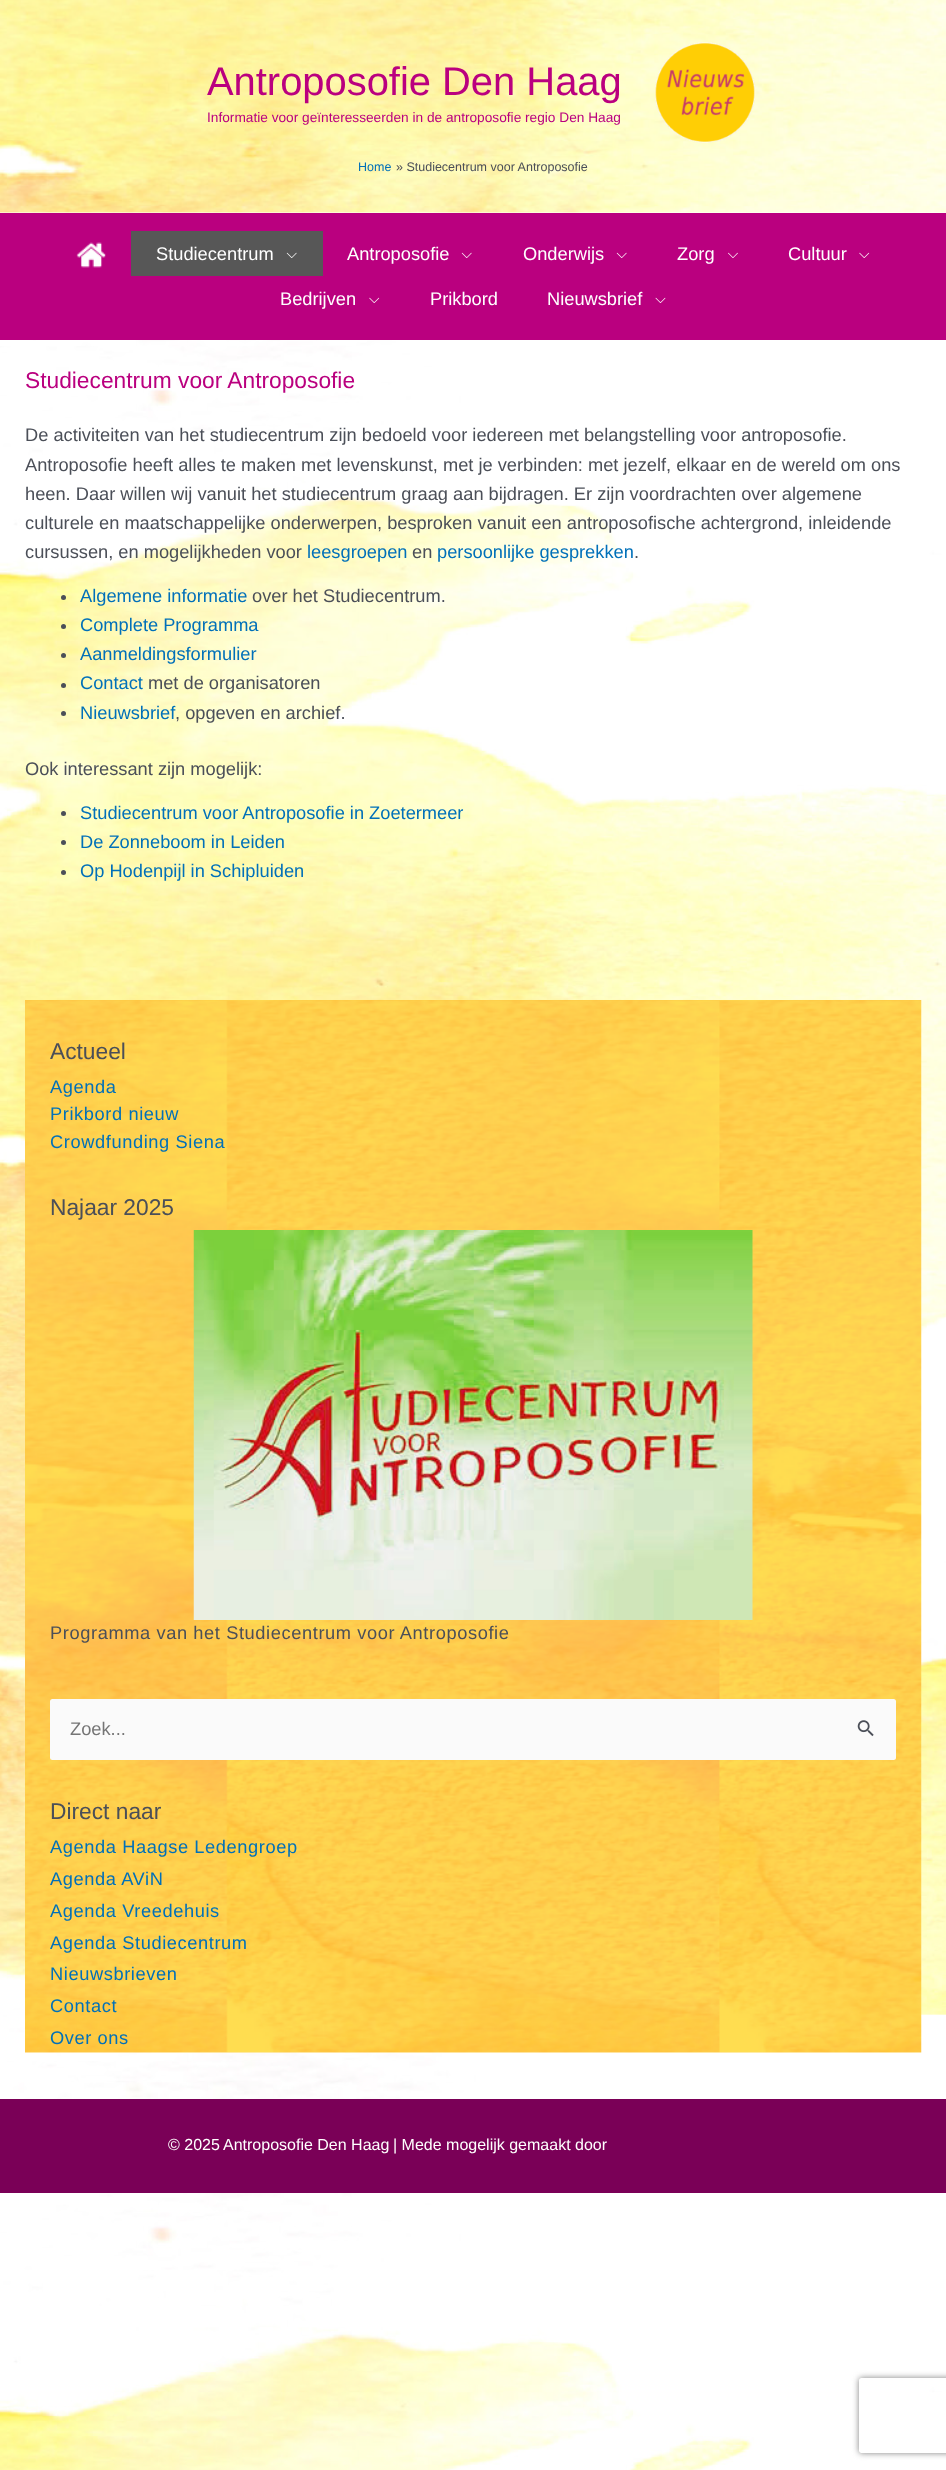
<svg xmlns="http://www.w3.org/2000/svg" width="946" height="2470" viewBox="0 0 946 2470">
  <style>
    .t1 { font: 39.9px Liberation Sans; fill: #ba007f; }
    .t2 { font: 13.7px Liberation Sans; fill: #ba007f; }
    .t3 { font: 12.5px Liberation Sans; fill: #0170b9; }
    .t4 { font: 12.5px Liberation Sans; fill: #4b4f58; }
    .t5 { font: 18.25px Liberation Sans; fill: #fff; }
    .t6 { font: 22.75px Liberation Sans; fill: #ba007f; }
    .t7 { font: 18.25px Liberation Sans; fill: #4b4f58; }
    .t8 { font: 18.25px Liberation Sans; fill: #0170b9; }
    .t9 { font: 22.75px Liberation Sans; fill: #4b4f58; }
    .t10 { font: 18.25px Liberation Sans; letter-spacing: 0.6px; fill: #0170b9; }
    .t11 { font: 18.25px Liberation Sans; letter-spacing: 0.6px; fill: #4b4f58; }
    .t12 { font: 18.25px Liberation Sans; fill: #757575; }
    .t13 { font: 16px Liberation Sans; fill: #fff; }
  </style>
  <defs>
    <clipPath id="clip1"><path d="M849 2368H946V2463H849ZM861.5 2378H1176.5C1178 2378 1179 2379 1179 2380.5V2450.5C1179 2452 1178 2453 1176.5 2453H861.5C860 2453 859 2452 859 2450.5V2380.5C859 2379 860 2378 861.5 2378Z" clip-rule="evenodd"/></clipPath>
  </defs>
  <rect width="100%" height="100%" fill="#fff"/>
  <image x="0" y="340" width="946" height="2130" href="images/1.png"/>
  <image x="0" y="0" width="946" height="213" href="images/2.png"/>
  <text x="207" y="95" class="t1">Antroposofie Den Haag</text>
  <text x="207" y="122" class="t2">Informatie voor geïnteresseerden in de antroposofie regio Den Haag</text>
  <image x="655" y="42" width="101" height="101" href="images/3.png"/>
  <text x="358" y="171" class="t3">Home</text>
  <text x="396" y="171" class="t4">» Studiecentrum voor Antroposofie</text>
  <rect x="0" y="213" width="946" height="127" fill="#ba007f"/>
  <image x="76" y="242" width="30" height="26" href="images/4.png"/>
  <rect x="131" y="231" width="192" height="45" fill="#575757"/>
  <text x="156" y="260" class="t5">Studiecentrum</text>
  <image x="286" y="252" width="11" height="6" href="images/5.png"/>
  <text x="347" y="260" class="t5">Antroposofie</text>
  <image x="461" y="252" width="11" height="6" href="images/6.png"/>
  <text x="523" y="260" class="t5">Onderwijs</text>
  <image x="616" y="252" width="11" height="6" href="images/6.png"/>
  <text x="677" y="260" class="t5">Zorg</text>
  <image x="728" y="252" width="10" height="6" href="images/7.png"/>
  <text x="788" y="260" class="t5">Cultuur</text>
  <image x="859" y="252" width="11" height="6" href="images/8.png"/>
  <text x="280" y="305" class="t5">Bedrijven</text>
  <image x="369" y="297" width="11" height="6" href="images/8.png"/>
  <text x="430" y="305" class="t5">Prikbord</text>
  <text x="547" y="305" class="t5">Nieuwsbrief</text>
  <image x="655" y="297" width="11" height="6" href="images/9.png"/>
  <text x="25" y="388" class="t6">Studiecentrum voor Antroposofie</text>
  <text x="25" y="441" class="t7">De activiteiten van het studiecentrum zijn bedoeld voor iedereen met belangstelling voor antroposofie.</text>
  <text x="25" y="471" class="t7">Antroposofie heeft alles te maken met levenskunst, met je verbinden: met jezelf, elkaar en de wereld om ons</text>
  <text x="25" y="500" class="t7">heen. Daar willen wij vanuit het studiecentrum graag aan bijdragen. Er zijn voordrachten over algemene</text>
  <text x="25" y="529" class="t7">culturele en maatschappelijke onderwerpen, besproken vanuit een antroposofische achtergrond, inleidende</text>
  <text x="25" y="558" class="t7">cursussen, en mogelijkheden voor</text>
  <text x="307" y="558" class="t8">leesgroepen</text>
  <text x="412" y="558" class="t7">en</text>
  <text x="437" y="558" class="t8">persoonlijke gesprekken</text>
  <text x="634" y="558" class="t7">.</text>
  <circle cx="63.5" cy="597.5" r="2.5" fill="#4b4f58"/>
  <text x="80" y="602" class="t8">Algemene informatie</text>
  <text x="252" y="602" class="t7">over het Studiecentrum.</text>
  <circle cx="63.5" cy="626.5" r="2.5" fill="#4b4f58"/>
  <text x="80" y="631" class="t8">Complete Programma</text>
  <circle cx="63.5" cy="655.5" r="2.5" fill="#4b4f58"/>
  <text x="80" y="660" class="t8">Aanmeldingsformulier</text>
  <circle cx="63.5" cy="685.5" r="2.5" fill="#4b4f58"/>
  <text x="80" y="689" class="t8">Contact</text>
  <text x="148" y="689" class="t7">met de organisatoren</text>
  <circle cx="63.5" cy="713.5" r="2.5" fill="#4b4f58"/>
  <text x="80" y="719" class="t8">Nieuwsbrief</text>
  <text x="175" y="719" class="t7">, opgeven en archief.</text>
  <text x="25" y="775" class="t7">Ook interessant zijn mogelijk:</text>
  <circle cx="63.5" cy="813.5" r="2.5" fill="#4b4f58"/>
  <text x="80" y="819" class="t8">Studiecentrum voor Antroposofie in Zoetermeer</text>
  <circle cx="63.5" cy="842.5" r="2.5" fill="#4b4f58"/>
  <text x="80" y="848" class="t8">De Zonneboom in Leiden</text>
  <circle cx="63.5" cy="872.5" r="2.5" fill="#4b4f58"/>
  <text x="80" y="877" class="t8">Op Hodenpijl in Schipluiden</text>
  <image x="25" y="1000" width="897" height="1053" href="images/10.png"/>
  <text x="50" y="1059" class="t9">Actueel</text>
  <text x="50" y="1093" class="t10">Agenda</text>
  <text x="50" y="1120" class="t10">Prikbord nieuw</text>
  <text x="50" y="1148" class="t10">Crowdfunding Siena</text>
  <text x="50" y="1215" class="t9">Najaar 2025</text>
  <image x="193" y="1230" width="560" height="390" href="images/11.png"/>
  <text x="50" y="1639" class="t11">Programma van het Studiecentrum voor Antroposofie</text>
  <rect x="50" y="1699" width="846" height="61" rx="2.5" fill="#fafafa"/>
  <text x="70" y="1735" class="t12">Zoek...</text>
  <image x="857" y="1720" width="17" height="17" href="images/12.png"/>
  <text x="50" y="1819" class="t9">Direct naar</text>
  <text x="50" y="1853" class="t10">Agenda Haagse Ledengroep</text>
  <text x="50" y="1885" class="t10">Agenda AViN</text>
  <text x="50" y="1917" class="t10">Agenda Vreedehuis</text>
  <text x="50" y="1949" class="t10">Agenda Studiecentrum</text>
  <text x="50" y="1980" class="t10">Nieuwsbrieven</text>
  <text x="50" y="2012" class="t10">Contact</text>
  <text x="50" y="2044" class="t10">Over ons</text>
  <rect x="0" y="2099" width="946" height="94" fill="#7a0057"/>
  <text x="168" y="2150" class="t13">© 2025</text>
  <text x="223" y="2150" class="t13">Antroposofie Den Haag</text>
  <text x="393" y="2150" class="t13">| Mede mogelijk gemaakt door</text>
  <g clip-path="url(#clip1)">
    <rect x="859" y="2378" width="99" height="75" rx="2.5" fill="#808080" filter="blur(3px)"/>
  </g>
</svg>
